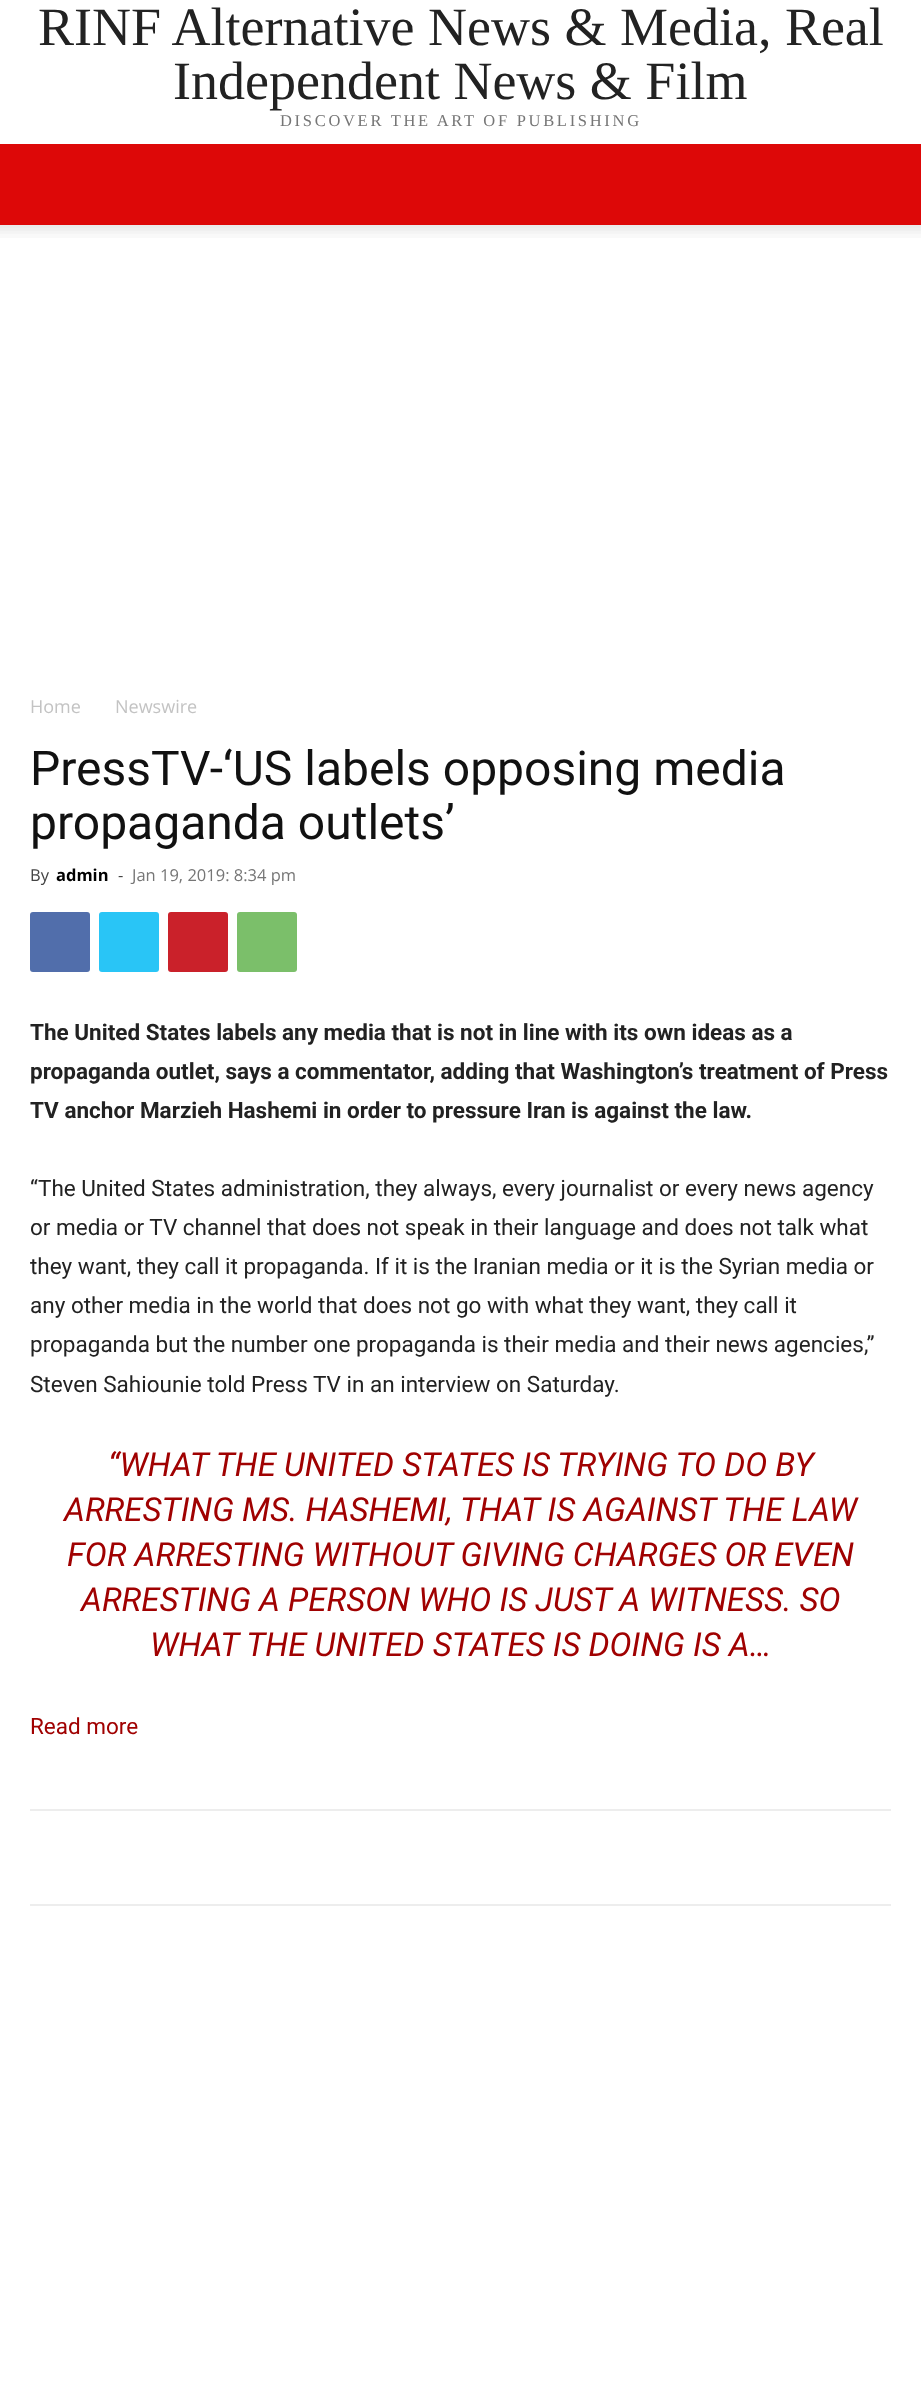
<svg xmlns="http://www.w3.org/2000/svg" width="921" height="2387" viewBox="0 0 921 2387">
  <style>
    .t1 { font: 54px Liberation Serif; fill: #222; }
    .t2 { font: 16.5px Liberation Serif; letter-spacing: 2.7px; fill: #767676; }
    .t3 { font: 18px Open Sans; fill: #c3c3c3; }
    .t4 { font: 48px Roboto; fill: #111; }
    .t5 { font: 16.5px Open Sans; fill: #444; }
    .t6 { font: bold 16.5px Open Sans; fill: #000; }
    .t7 { font: 16.5px Open Sans; fill: #767676; }
    .t8 { font: bold 22.5px Roboto; fill: #222; }
    .t9 { font: 22.5px Roboto; fill: #222; }
    .t10 { font: italic 33px Roboto; fill: #a00101; }
    .t11 { font: 22.5px Roboto; fill: #a00101; }
  </style>
  <rect width="100%" height="100%" fill="#fff"/>
  <text x="38" y="45" class="t1">RINF Alternative News &amp; Media, Real</text>
  <text x="173" y="99" class="t1">Independent News &amp; Film</text>
  <text x="280" y="126" class="t2">DISCOVER THE ART OF PUBLISHING</text>
  <rect x="0" y="144" width="921" height="81" fill="#dd0808"/>
  <image x="0" y="225" width="921" height="13" href="images/1.png"/>
  <text x="30" y="713" class="t3">Home</text>
  <text x="115" y="713" class="t3">Newswire</text>
  <text x="30" y="785" class="t4">PressTV-‘US labels opposing media</text>
  <text x="30" y="839" class="t4">propaganda outlets’</text>
  <text x="30" y="881" class="t5">By</text>
  <text x="56" y="881" class="t6">admin</text>
  <text x="118" y="881" class="t5">-</text>
  <text x="132" y="881" class="t7">Jan 19, 2019: 8:34 pm</text>
  <rect x="30" y="912" width="60" height="60" rx="3" fill="#516eab"/>
  <rect x="99" y="912" width="60" height="60" rx="3" fill="#29c5f6"/>
  <rect x="168" y="912" width="60" height="60" rx="3" fill="#ca212a"/>
  <rect x="237" y="912" width="60" height="60" rx="3" fill="#7bbf6a"/>
  <text x="30" y="1040" class="t8">The United States labels any media that is not in line with its own ideas as a</text>
  <text x="30" y="1079" class="t8">propaganda outlet, says a commentator, adding that Washington’s treatment of Press</text>
  <text x="30" y="1118" class="t8">TV anchor Marzieh Hashemi in order to pressure Iran is against the law.</text>
  <text x="30" y="1196" class="t9">“The United States administration, they always, every journalist or every news agency</text>
  <text x="30" y="1235" class="t9">or media or TV channel that does not speak in their language and does not talk what</text>
  <text x="30" y="1274" class="t9">they want, they call it propaganda. If it is the Iranian media or it is the Syrian media or</text>
  <text x="30" y="1313" class="t9">any other media in the world that does not go with what they want, they call it</text>
  <text x="30" y="1352" class="t9">propaganda but the number one propaganda is their media and their news agencies,”</text>
  <text x="30" y="1392" class="t9">Steven Sahiounie told Press TV in an interview on Saturday.</text>
  <text x="108" y="1476" class="t10">“WHAT THE UNITED STATES IS TRYING TO DO BY</text>
  <text x="64" y="1521" class="t10">ARRESTING MS. HASHEMI, THAT IS AGAINST THE LAW</text>
  <text x="67" y="1566" class="t10">FOR ARRESTING WITHOUT GIVING CHARGES OR EVEN</text>
  <text x="81" y="1611" class="t10">ARRESTING A PERSON WHO IS JUST A WITNESS. SO</text>
  <text x="150" y="1656" class="t10">WHAT THE UNITED STATES IS DOING IS A…</text>
  <text x="30" y="1734" class="t11">Read more</text>
  <rect x="30" y="1809" width="861" height="2" fill="#ededed"/>
  <rect x="30" y="1904" width="861" height="2" fill="#ededed"/>
</svg>
